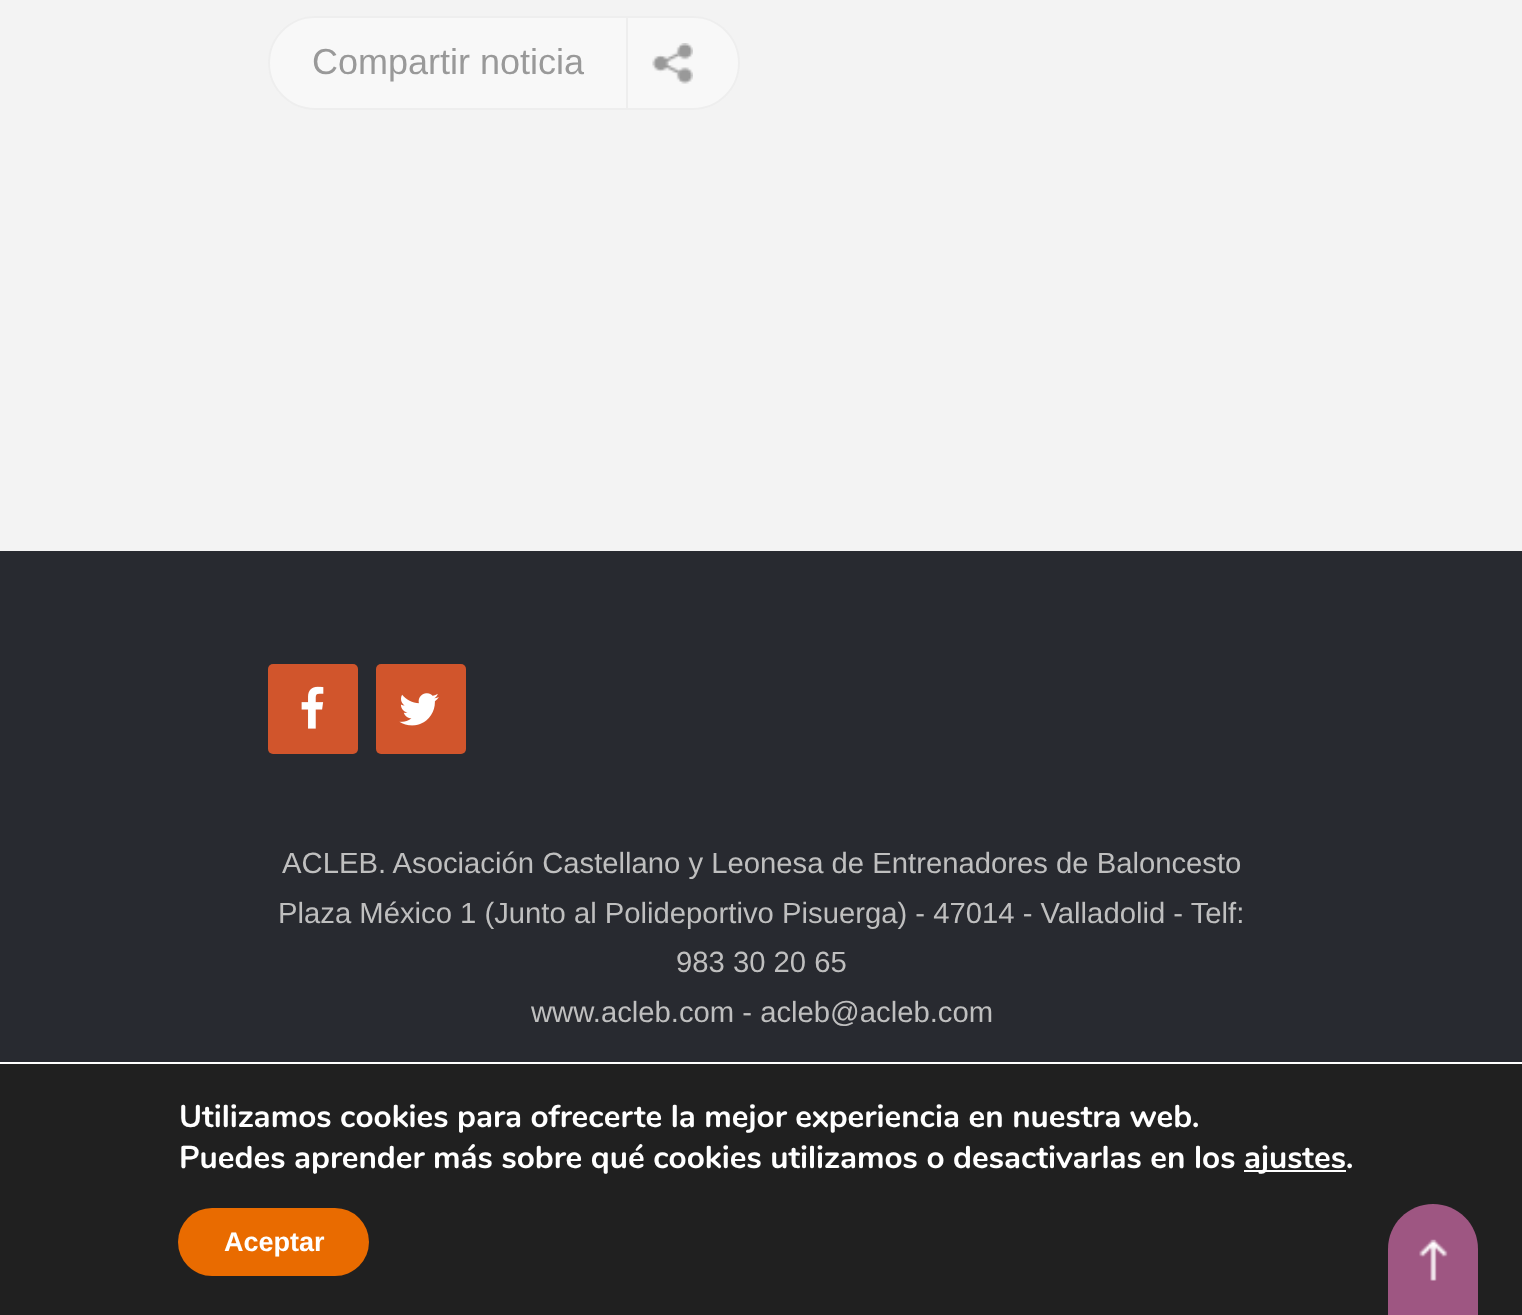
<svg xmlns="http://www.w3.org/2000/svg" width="1522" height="1315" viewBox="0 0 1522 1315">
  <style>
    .t1 { font: 36px Liberation Sans; fill: #999; }
    .t2 { font: 29.25px Liberation Sans; fill: #bfbfbf; }
    .t3 { font: bold 31.5px Nunito; fill: #fff; }
    .t4 { font: bold 27px Liberation Sans; fill: #fff; }
  </style>
  <rect width="100%" height="100%" fill="#f3f3f3"/>
  <rect x="268" y="16" width="472" height="94" rx="47" fill="#f8f8f8"/>
  <image x="652" y="43" width="41" height="41" href="images/1.png"/>
  <rect x="269" y="17" width="470" height="92" rx="46" fill="none" stroke="#eee" stroke-width="2"/>
  <text x="312" y="74" class="t1">Compartir noticia</text>
  <rect x="626" y="16" width="2" height="94" fill="#eee"/>
  <rect x="0" y="551" width="1522" height="511" fill="#282a30"/>
  <rect x="268" y="664" width="90" height="90" rx="5" fill="#d1552c"/>
  <image x="301" y="686" width="23" height="43" href="images/2.png"/>
  <rect x="376" y="664" width="90" height="90" rx="5" fill="#d1552c"/>
  <image x="399" y="693" width="40" height="33" href="images/3.png"/>
  <text x="282" y="873" class="t2">ACLEB. Asociación Castellano y Leonesa de Entrenadores de Baloncesto</text>
  <text x="278" y="923" class="t2">Plaza México 1 (Junto al Polideportivo Pisuerga) - 47014 - Valladolid - Telf:</text>
  <text x="676" y="972" class="t2">983 30 20 65</text>
  <text x="531" y="1022" class="t2">www.acleb.com - acleb@acleb.com</text>
  <rect x="0" y="1064" width="1522" height="251" fill="#202020"/>
  <rect x="0" y="1062" width="1522" height="2" fill="#fff"/>
  <text x="179" y="1127" class="t3">Utilizamos cookies para ofrecerte la mejor experiencia en nuestra web.</text>
  <text x="179" y="1168" class="t3">Puedes aprender más sobre qué cookies utilizamos o desactivarlas en los</text>
  <rect x="1244" y="1170" width="102" height="2" fill="#fff"/>
  <text x="1244" y="1168" class="t3">ajustes.</text>
  <rect x="178" y="1208" width="191" height="68" rx="34" fill="#e96b00"/>
  <text x="224" y="1251" class="t4">Aceptar</text>
  <path d="M1433 1204C1458 1204 1478 1224 1478 1249V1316H1388V1249C1388 1224 1408 1204 1433 1204Z" fill="#9e5682"/>
  <image x="1419" y="1239" width="29" height="42" href="images/4.png"/>
</svg>
